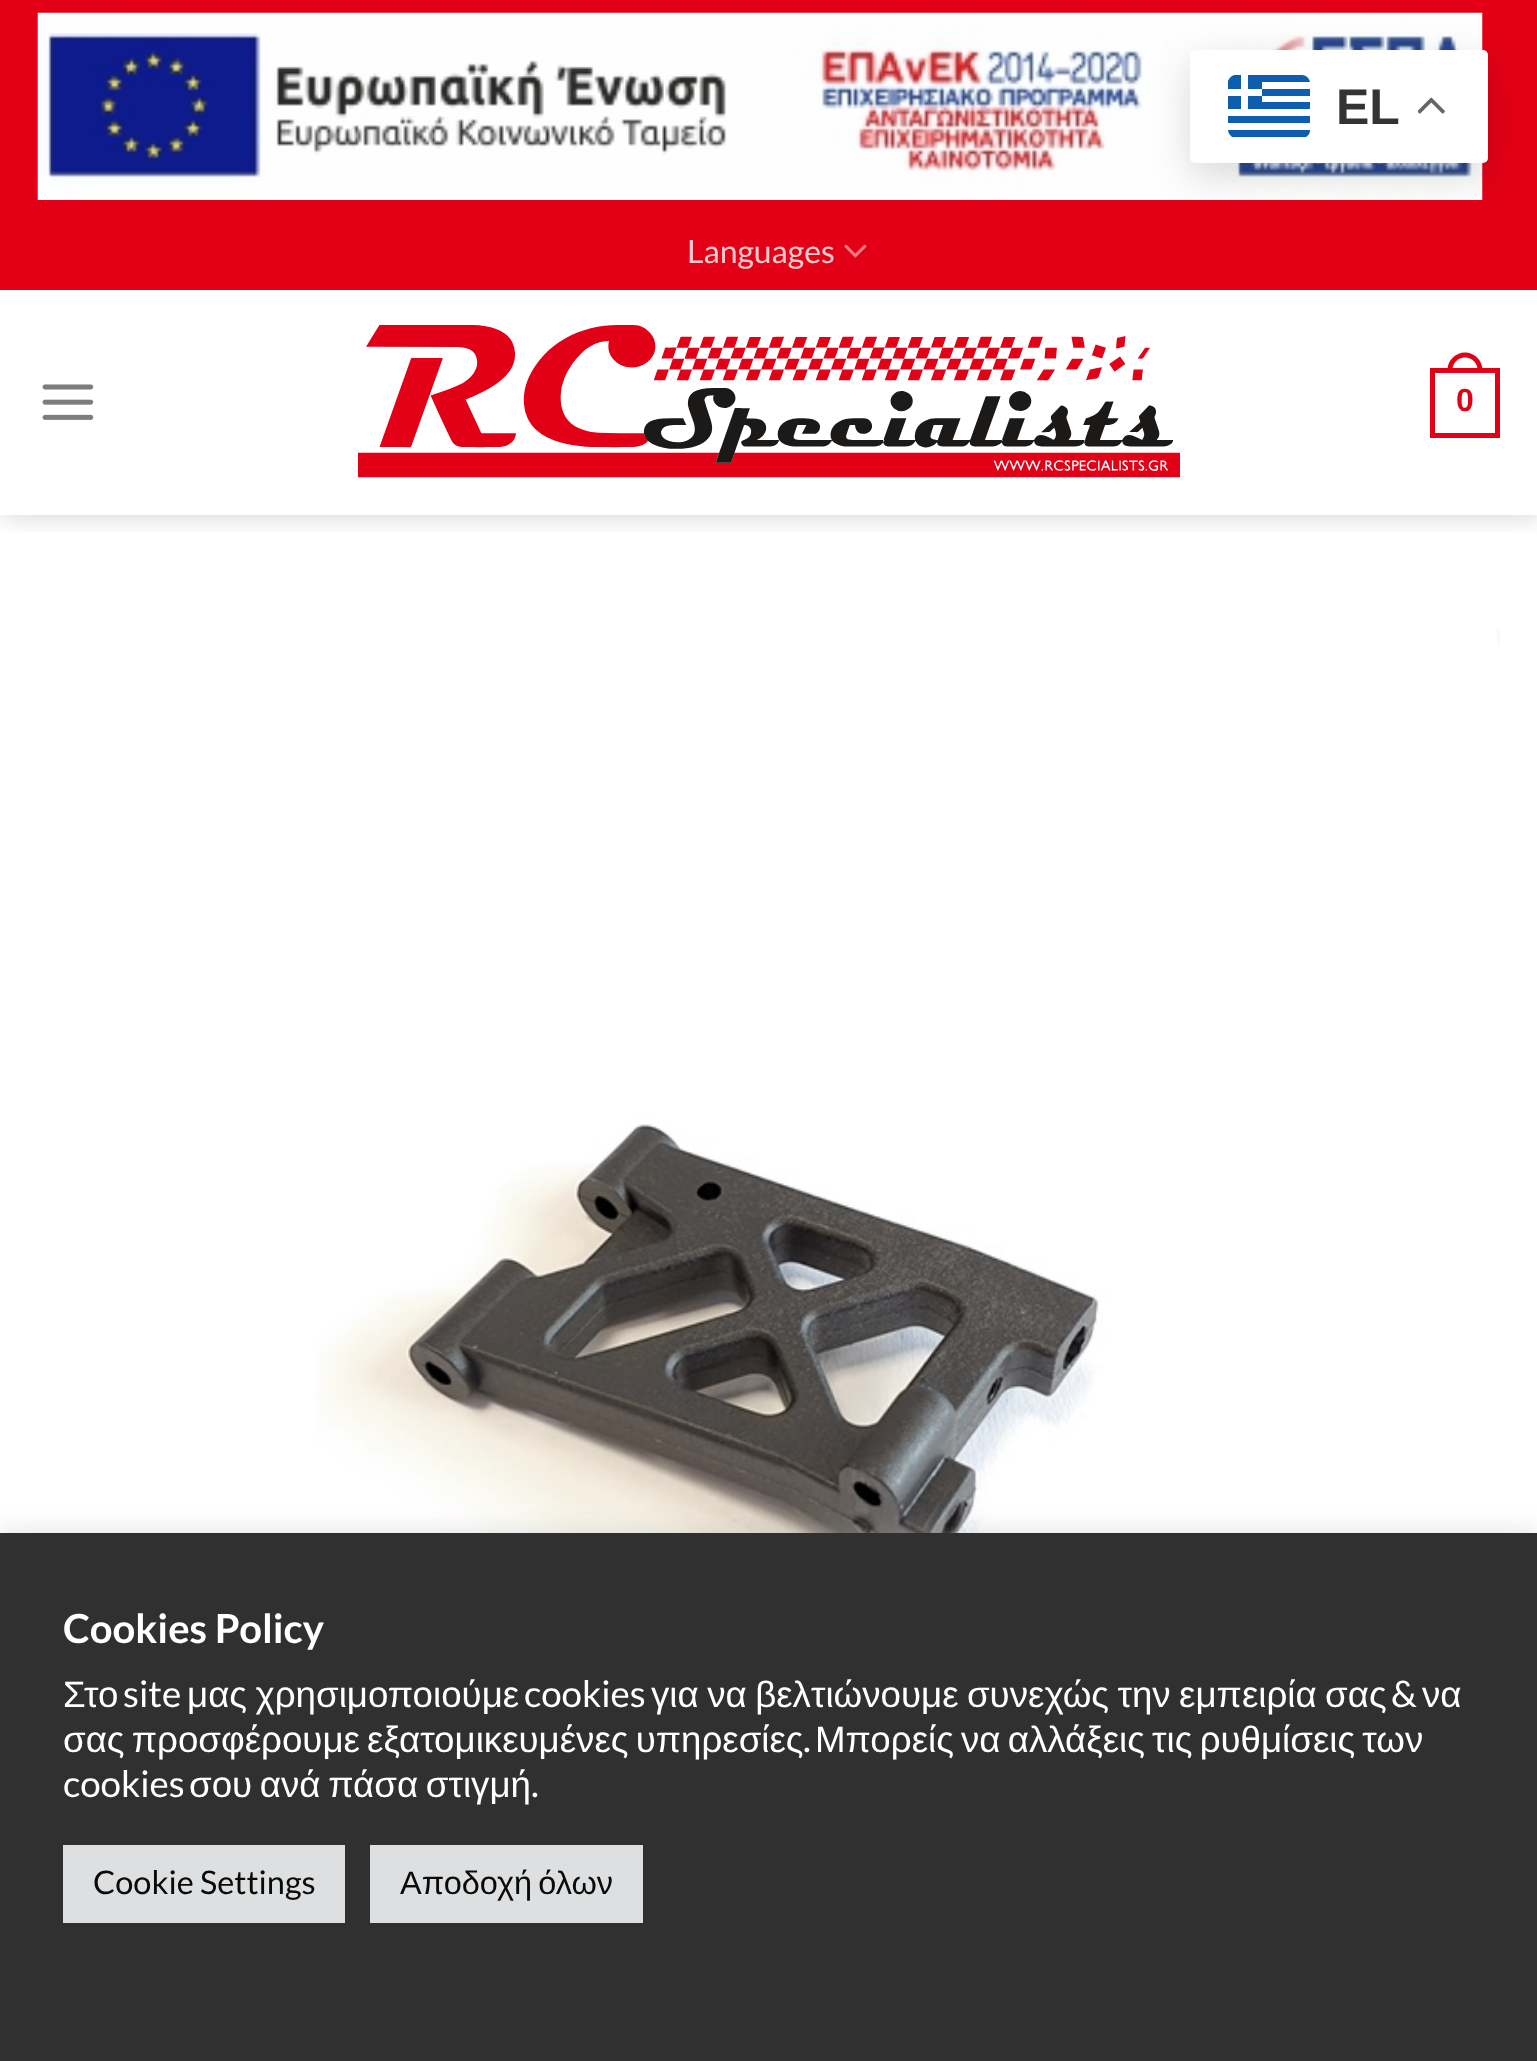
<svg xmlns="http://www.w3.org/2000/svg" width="1537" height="2061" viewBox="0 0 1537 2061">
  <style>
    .t1 { font: bold 50px Liberation Sans; fill: #333; }
    .t2 { font: 32px Lato; fill: #f9ccd0; }
    .t3 { font: bold 32px Liberation Sans; fill: #e30016; }
    .t4 { font: bold 40px Lato; fill: #fff; }
    .t5 { font: 36.7px Liberation Sans; fill: #fff; }
    .t6 { font: 36.7px Lato; fill: #fff; }
    .t7 { font: 32.5px Lato; fill: #0a0a0a; }
    .t8 { font: 32.5px Liberation Sans; fill: #0a0a0a; }
  </style>
  <defs>
    <clipPath id="clip1"><rect x="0" y="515" width="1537" height="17"/></clipPath>
  </defs>
  <rect width="100%" height="100%" fill="#fff"/>
  <g clip-path="url(#clip1)">
    <rect x="3" y="3" width="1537" height="515" fill="#00000026" filter="blur(12.5px)"/>
  </g>
  <rect x="0" y="0" width="1537" height="290" fill="#e30016"/>
  <image x="37" y="12" width="1446" height="188" href="images/2.png"/>
  <rect x="1190" y="63" width="298" height="112" rx="5" fill="#00000026" filter="blur(19px)"/>
  <rect x="1190" y="50" width="298" height="113" rx="5" fill="#fff"/>
  <path d="M1236 75C1232 75 1229 78 1228 82H1310C1309 78 1306 75 1302 75Z" fill="#0d5eaf"/>
  <rect x="1262" y="89" width="48" height="7" fill="#0d5eaf"/>
  <rect x="1262" y="102" width="48" height="7" fill="#0d5eaf"/>
  <rect x="1228" y="116" width="82" height="7" fill="#0d5eaf"/>
  <path d="M1228 130H1310C1310 133 1309 135 1306 137H1232C1230 135 1228 133 1228 130ZM1236 75C1232 75 1228 79 1228 83V109H1262V75Z" fill="#0d5eaf" fill-rule="evenodd"/>
  <rect x="1241" y="75" width="7" height="35" fill="#fff"/>
  <rect x="1228" y="89" width="34" height="7" fill="#fff"/>
  <text x="1336" y="124" class="t1">EL</text>
  <image x="1418" y="97" width="27" height="17" href="images/1.png"/>
  <text x="687" y="263" class="t2">Languages</text>
  <image x="844" y="244" width="23" height="14" href="images/3.png"/>
  <image x="42" y="384" width="52" height="36" href="images/4.png"/>
  <image x="358" y="325" width="822" height="153" href="images/5.png"/>
  <rect x="1432.5" y="370.5" width="65" height="65" fill="none" stroke="#e30016" stroke-width="5"/>
  <path d="M1465 352.5C1474.5 352.5 1482.5 360.5 1482.5 370V372.5H1447.5V370C1447.5 360.5 1455.5 352.5 1465 352.5ZM1465 357.5C1472 357.5 1477.5 363 1477.5 370V372.5H1452.5V370C1452.5 363 1458 357.5 1465 357.5Z" fill="#e30016" fill-rule="evenodd"/>
  <text x="1456" y="411" class="t3">0</text>
  <image x="315" y="629" width="1185" height="904" href="images/6.png"/>
  <rect x="0" y="1530" width="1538" height="530" fill="#acabab4d" filter="blur(12.5px)"/>
  <rect x="0" y="1533" width="1537" height="528" fill="#303030"/>
  <text x="63" y="1643" class="t4">Cookies Policy</text>
  <text x="63" y="1707" class="t5">Στο</text>
  <text x="123" y="1707" class="t6">site</text>
  <text x="187" y="1707" word-spacing="-1.75" class="t5">μας χρησιμοποιούμε</text>
  <text x="524" y="1707" class="t6">cookies</text>
  <text x="651" y="1707" word-spacing="-1.75" class="t5">για να βελτιώνουμε συνεχώς την εμπειρία σας</text>
  <text x="1391" y="1707" class="t6">&amp;</text>
  <text x="1422" y="1707" class="t5">να</text>
  <text x="63" y="1752" word-spacing="-3" class="t5">σας προσφέρουμε εξατομικευμένες υπηρεσίες</text>
  <text x="803" y="1752" class="t6">.</text>
  <text x="815" y="1752" word-spacing="-3" class="t5">Μπορείς να αλλάξεις τις ρυθμίσεις των</text>
  <text x="63" y="1797" class="t6">cookies</text>
  <text x="189" y="1797" word-spacing="-2.5" class="t5">σου ανά πάσα στιγμή</text>
  <text x="531" y="1797" class="t6">.</text>
  <rect x="63" y="1845" width="282" height="78" fill="#dedfe0"/>
  <text x="93" y="1894" class="t7">Cookie Settings</text>
  <rect x="370" y="1845" width="273" height="78" fill="#dedfe0"/>
  <text x="400" y="1894" word-spacing="-3" class="t8">Αποδοχή όλων</text>
</svg>
